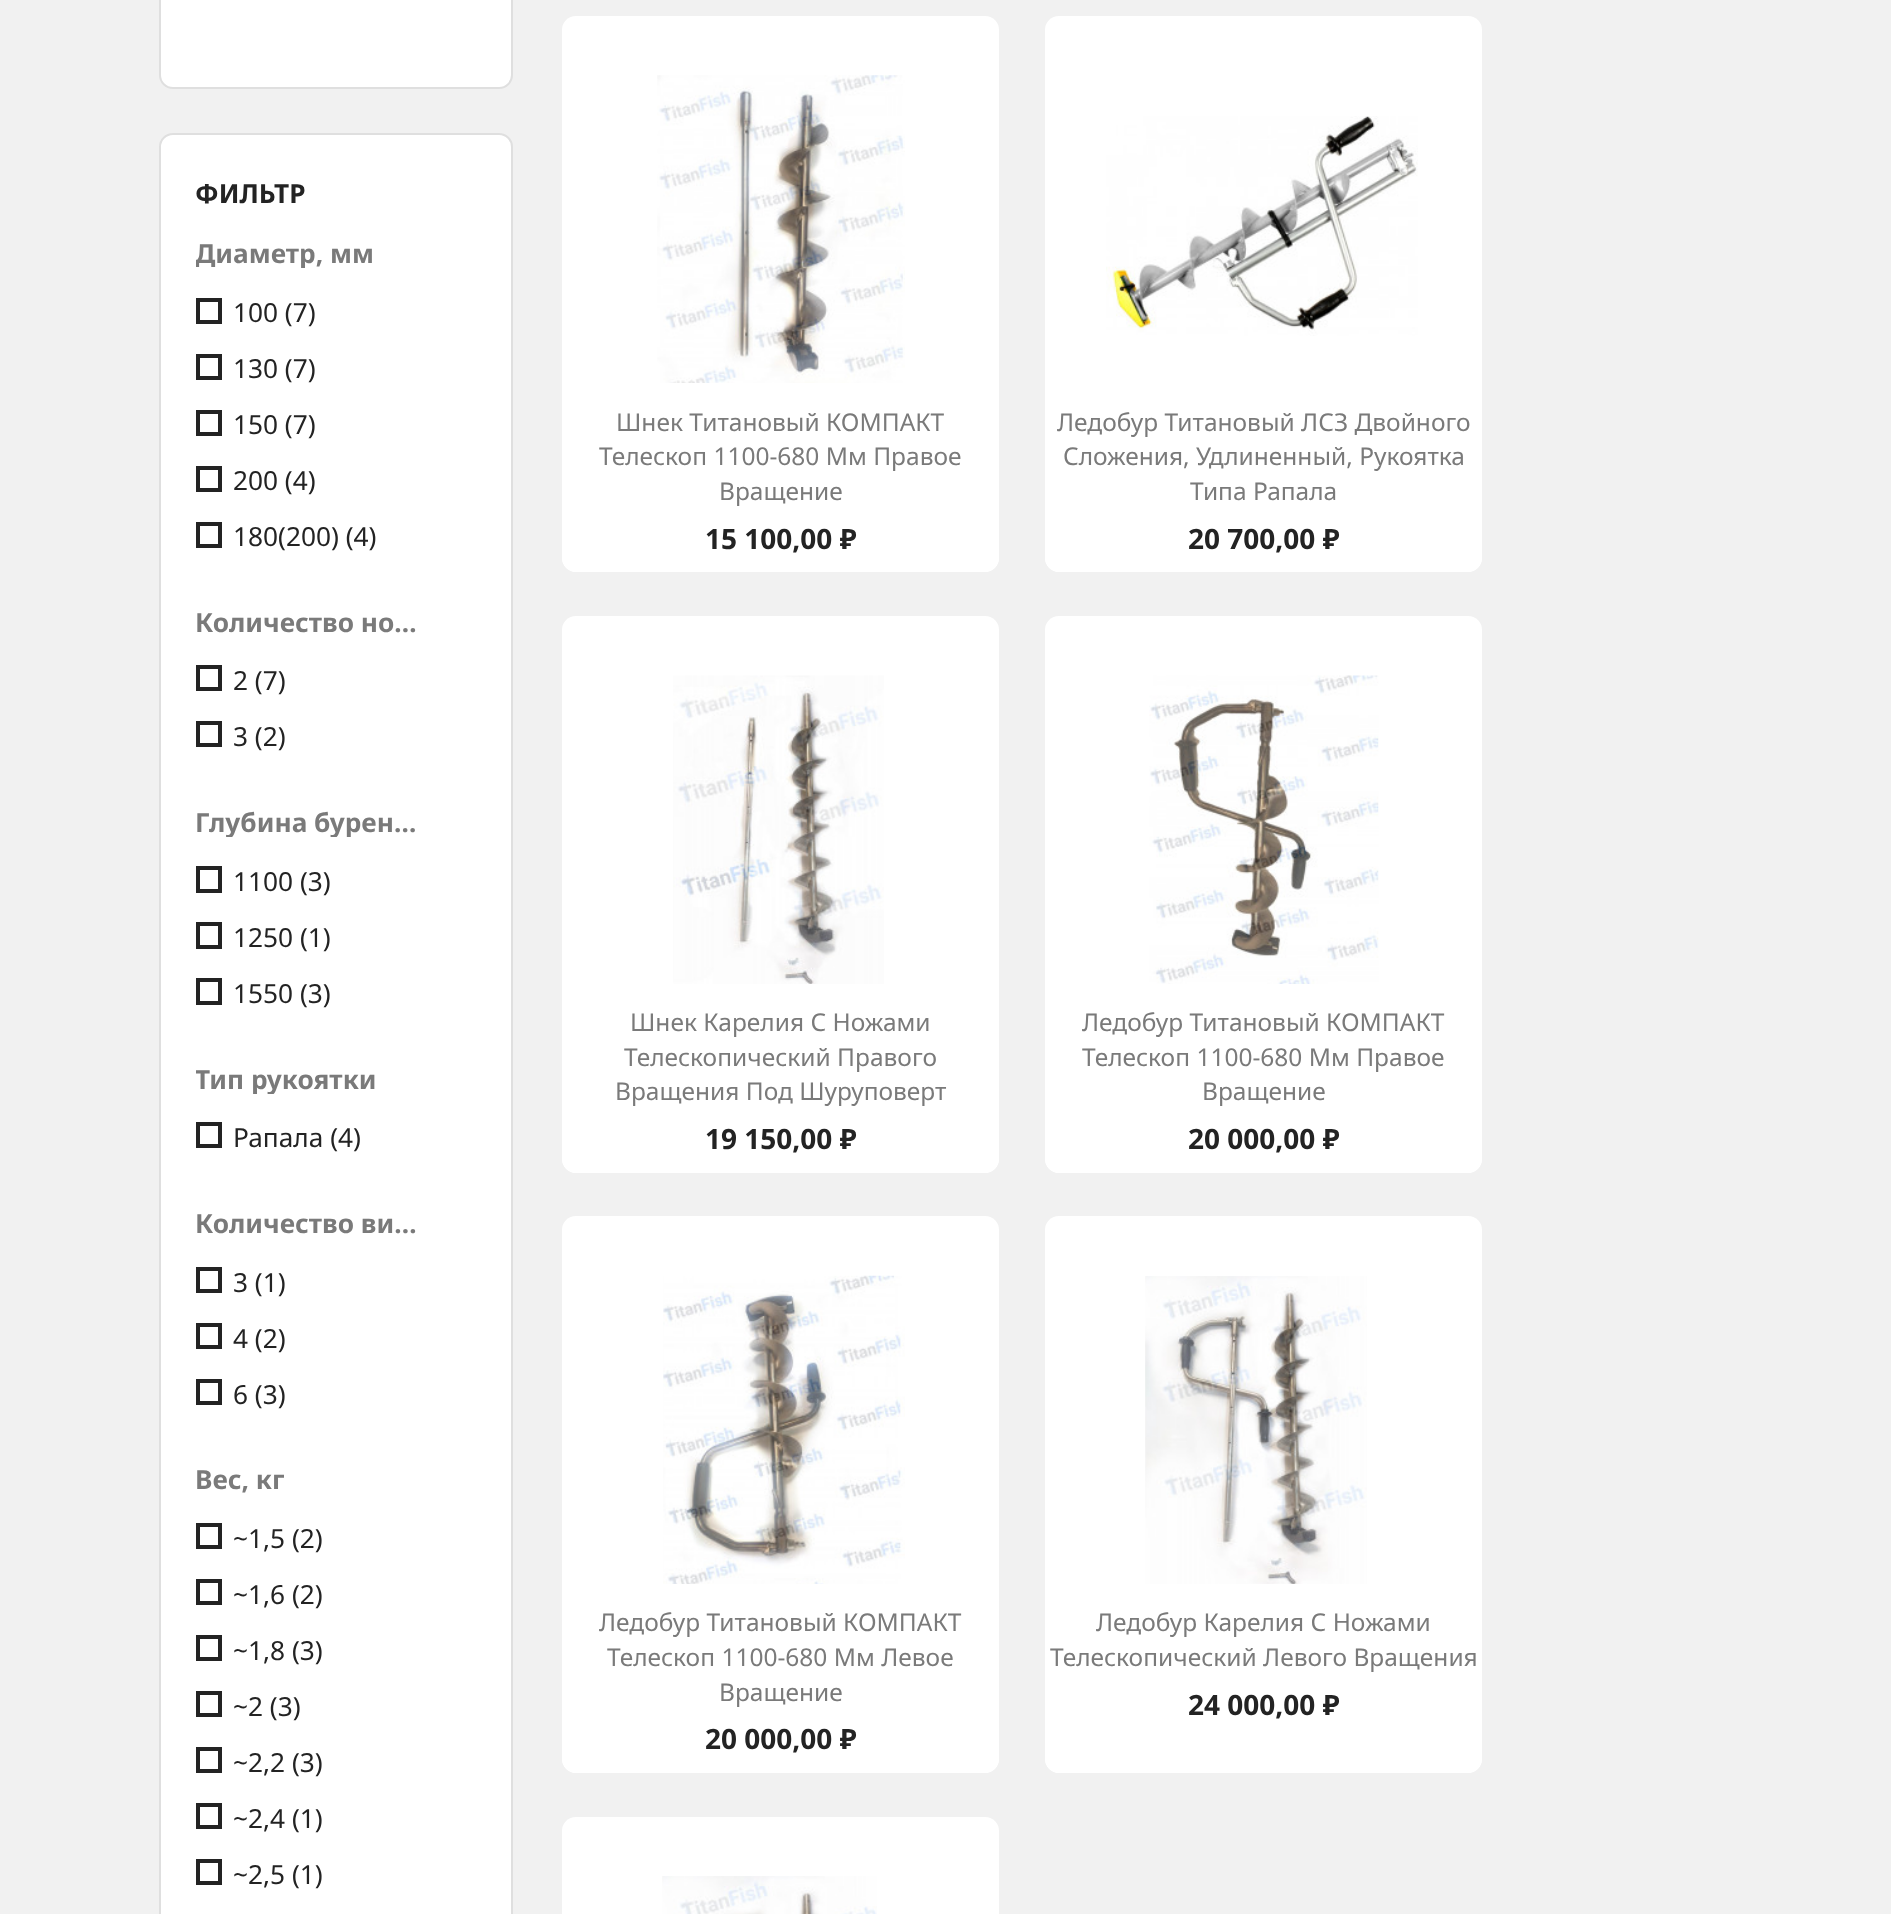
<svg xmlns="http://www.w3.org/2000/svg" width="1891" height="1914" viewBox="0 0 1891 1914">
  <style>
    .t1 { font: bold 26.25px Noto Sans; fill: #232323; }
    .t2 { font: bold 26.25px Noto Sans; fill: #7a7a7a; }
    .t3 { font: 26.25px Noto Sans; fill: #232323; }
    .t4 { font: 24.5px Noto Sans; fill: #7a7a7a; }
    .t5 { font: bold 28px Noto Sans; fill: #232323; }
  </style>
  <defs>
    <clipPath id="clip1"><rect x="196" y="240" width="228" height="28"/></clipPath>
    <clipPath id="clip2"><rect x="196" y="809" width="228" height="28"/></clipPath>
    <clipPath id="clip3"><rect x="196" y="1064" width="228" height="30"/></clipPath>
  </defs>
  <rect width="100%" height="100%" fill="#f1f1f1"/>
  <rect x="160" y="-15" width="352" height="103" rx="13" fill="#fff" stroke="#dfdfdf" stroke-width="2"/>
  <rect x="160" y="134" width="352" height="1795" rx="13" fill="#fff" stroke="#dfdfdf" stroke-width="2"/>
  <text x="195" y="203" class="t1">ФИЛЬТР</text>
  <g clip-path="url(#clip1)">
    <text x="195" y="263" class="t2">Диаметр, мм</text>
  </g>
  <rect x="198" y="300" width="22" height="22" fill="none" stroke="#232323" stroke-width="4"/>
  <text x="233" y="322" class="t3">100 (7)</text>
  <rect x="198" y="356" width="22" height="22" fill="none" stroke="#232323" stroke-width="4"/>
  <text x="233" y="378" class="t3">130 (7)</text>
  <rect x="198" y="412" width="22" height="22" fill="none" stroke="#232323" stroke-width="4"/>
  <text x="233" y="434" class="t3">150 (7)</text>
  <rect x="198" y="468" width="22" height="22" fill="none" stroke="#232323" stroke-width="4"/>
  <text x="233" y="490" class="t3">200 (4)</text>
  <rect x="198" y="524" width="22" height="22" fill="none" stroke="#232323" stroke-width="4"/>
  <text x="233" y="546" class="t3">180(200) (4)</text>
  <text x="195" y="632" class="t2">Количество но…</text>
  <rect x="198" y="667" width="22" height="22" fill="none" stroke="#232323" stroke-width="4"/>
  <text x="233" y="690" class="t3">2 (7)</text>
  <rect x="198" y="723" width="22" height="22" fill="none" stroke="#232323" stroke-width="4"/>
  <text x="233" y="746" class="t3">3 (2)</text>
  <g clip-path="url(#clip2)">
    <text x="195" y="832" class="t2">Глубина бурен…</text>
  </g>
  <rect x="198" y="868" width="22" height="23" fill="none" stroke="#232323" stroke-width="4"/>
  <text x="233" y="891" class="t3">1100 (3)</text>
  <rect x="198" y="924" width="22" height="23" fill="none" stroke="#232323" stroke-width="4"/>
  <text x="233" y="947" class="t3">1250 (1)</text>
  <rect x="198" y="980" width="22" height="23" fill="none" stroke="#232323" stroke-width="4"/>
  <text x="233" y="1003" class="t3">1550 (3)</text>
  <g clip-path="url(#clip3)">
    <text x="195" y="1089" class="t2">Тип рукоятки</text>
  </g>
  <rect x="198" y="1124" width="22" height="22" fill="none" stroke="#232323" stroke-width="4"/>
  <text x="233" y="1147" class="t3">Рапала (4)</text>
  <text x="195" y="1233" class="t2">Количество ви…</text>
  <rect x="198" y="1269" width="22" height="22" fill="none" stroke="#232323" stroke-width="4"/>
  <text x="233" y="1292" class="t3">3 (1)</text>
  <rect x="198" y="1325" width="22" height="22" fill="none" stroke="#232323" stroke-width="4"/>
  <text x="233" y="1348" class="t3">4 (2)</text>
  <rect x="198" y="1381" width="22" height="22" fill="none" stroke="#232323" stroke-width="4"/>
  <text x="233" y="1404" class="t3">6 (3)</text>
  <text x="195" y="1489" class="t2">Вес, кг</text>
  <rect x="198" y="1525" width="22" height="22" fill="none" stroke="#232323" stroke-width="4"/>
  <text x="233" y="1548" class="t3">~1,5 (2)</text>
  <rect x="198" y="1581" width="22" height="22" fill="none" stroke="#232323" stroke-width="4"/>
  <text x="233" y="1604" class="t3">~1,6 (2)</text>
  <rect x="198" y="1637" width="22" height="22" fill="none" stroke="#232323" stroke-width="4"/>
  <text x="233" y="1660" class="t3">~1,8 (3)</text>
  <rect x="198" y="1693" width="22" height="22" fill="none" stroke="#232323" stroke-width="4"/>
  <text x="233" y="1716" class="t3">~2 (3)</text>
  <rect x="198" y="1749" width="22" height="22" fill="none" stroke="#232323" stroke-width="4"/>
  <text x="233" y="1772" class="t3">~2,2 (3)</text>
  <rect x="198" y="1805" width="22" height="22" fill="none" stroke="#232323" stroke-width="4"/>
  <text x="233" y="1828" class="t3">~2,4 (1)</text>
  <rect x="198" y="1861" width="22" height="22" fill="none" stroke="#232323" stroke-width="4"/>
  <text x="233" y="1884" class="t3">~2,5 (1)</text>
  <rect x="562" y="16" width="437" height="556" rx="14" fill="#fff"/>
  <image x="657" y="75" width="248" height="308" href="images/1.png"/>
  <path d="M562 383H999V558C999 565.5 992.5 572 985 572H576C568.5 572 562 565.5 562 558Z" fill="#fff"/>
  <text x="616" y="431" class="t4">Шнек Титановый КОМПАКТ</text>
  <text x="599" y="465" class="t4">Телескоп 1100-680 Мм Правое</text>
  <text x="719" y="500" class="t4">Вращение</text>
  <text x="705" y="549" class="t5">15 100,00 ₽</text>
  <rect x="1045" y="16" width="437" height="556" rx="14" fill="#fff"/>
  <image x="1106" y="116" width="312" height="220" href="images/2.png"/>
  <path d="M1045 383H1482V558C1482 565.5 1475.5 572 1468 572H1059C1051.5 572 1045 565.5 1045 558Z" fill="#fff"/>
  <text x="1057" y="431" class="t4">Ледобур Титановый ЛСЗ Двойного</text>
  <text x="1063" y="465" class="t4">Сложения, Удлиненный, Рукоятка</text>
  <text x="1190" y="500" class="t4">Типа Рапала</text>
  <text x="1188" y="549" class="t5">20 700,00 ₽</text>
  <rect x="562" y="616" width="437" height="557" rx="14" fill="#fff"/>
  <image x="673" y="675" width="211" height="309" href="images/3.png"/>
  <path d="M562 984H999V1159C999 1166.5 992.5 1173 985 1173H576C568.5 1173 562 1166.5 562 1159Z" fill="#fff"/>
  <text x="630" y="1031" class="t4">Шнек Карелия С Ножами</text>
  <text x="624" y="1066" class="t4">Телескопический Правого</text>
  <text x="615" y="1100" class="t4">Вращения Под Шуруповерт</text>
  <text x="705" y="1149" class="t5">19 150,00 ₽</text>
  <rect x="1045" y="616" width="437" height="557" rx="14" fill="#fff"/>
  <image x="1149" y="675" width="230" height="309" href="images/4.png"/>
  <path d="M1045 984H1482V1159C1482 1166.5 1475.5 1173 1468 1173H1059C1051.5 1173 1045 1166.5 1045 1159Z" fill="#fff"/>
  <text x="1082" y="1031" class="t4">Ледобур Титановый КОМПАКТ</text>
  <text x="1082" y="1066" class="t4">Телескоп 1100-680 Мм Правое</text>
  <text x="1202" y="1100" class="t4">Вращение</text>
  <text x="1188" y="1149" class="t5">20 000,00 ₽</text>
  <rect x="562" y="1216" width="437" height="557" rx="14" fill="#fff"/>
  <image x="663" y="1275" width="242" height="309" href="images/5.png"/>
  <path d="M562 1584H999V1759C999 1766.5 992.5 1773 985 1773H576C568.5 1773 562 1766.5 562 1759Z" fill="#fff"/>
  <text x="599" y="1631" class="t4">Ледобур Титановый КОМПАКТ</text>
  <text x="607" y="1666" class="t4">Телескоп 1100-680 Мм Левое</text>
  <text x="719" y="1701" class="t4">Вращение</text>
  <text x="705" y="1749" class="t5">20 000,00 ₽</text>
  <rect x="1045" y="1216" width="437" height="557" rx="14" fill="#fff"/>
  <image x="1145" y="1276" width="222" height="308" href="images/6.png"/>
  <path d="M1045 1584H1482V1759C1482 1766.5 1475.5 1773 1468 1773H1059C1051.5 1773 1045 1766.5 1045 1759Z" fill="#fff"/>
  <text x="1096" y="1631" class="t4">Ледобур Карелия С Ножами</text>
  <text x="1050" y="1666" class="t4">Телескопический Левого Вращения</text>
  <text x="1188" y="1715" class="t5">24 000,00 ₽</text>
  <rect x="562" y="1817" width="437" height="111" rx="14" fill="#fff"/>
  <image x="662" y="1876" width="215" height="38" href="images/7.png"/>
</svg>
